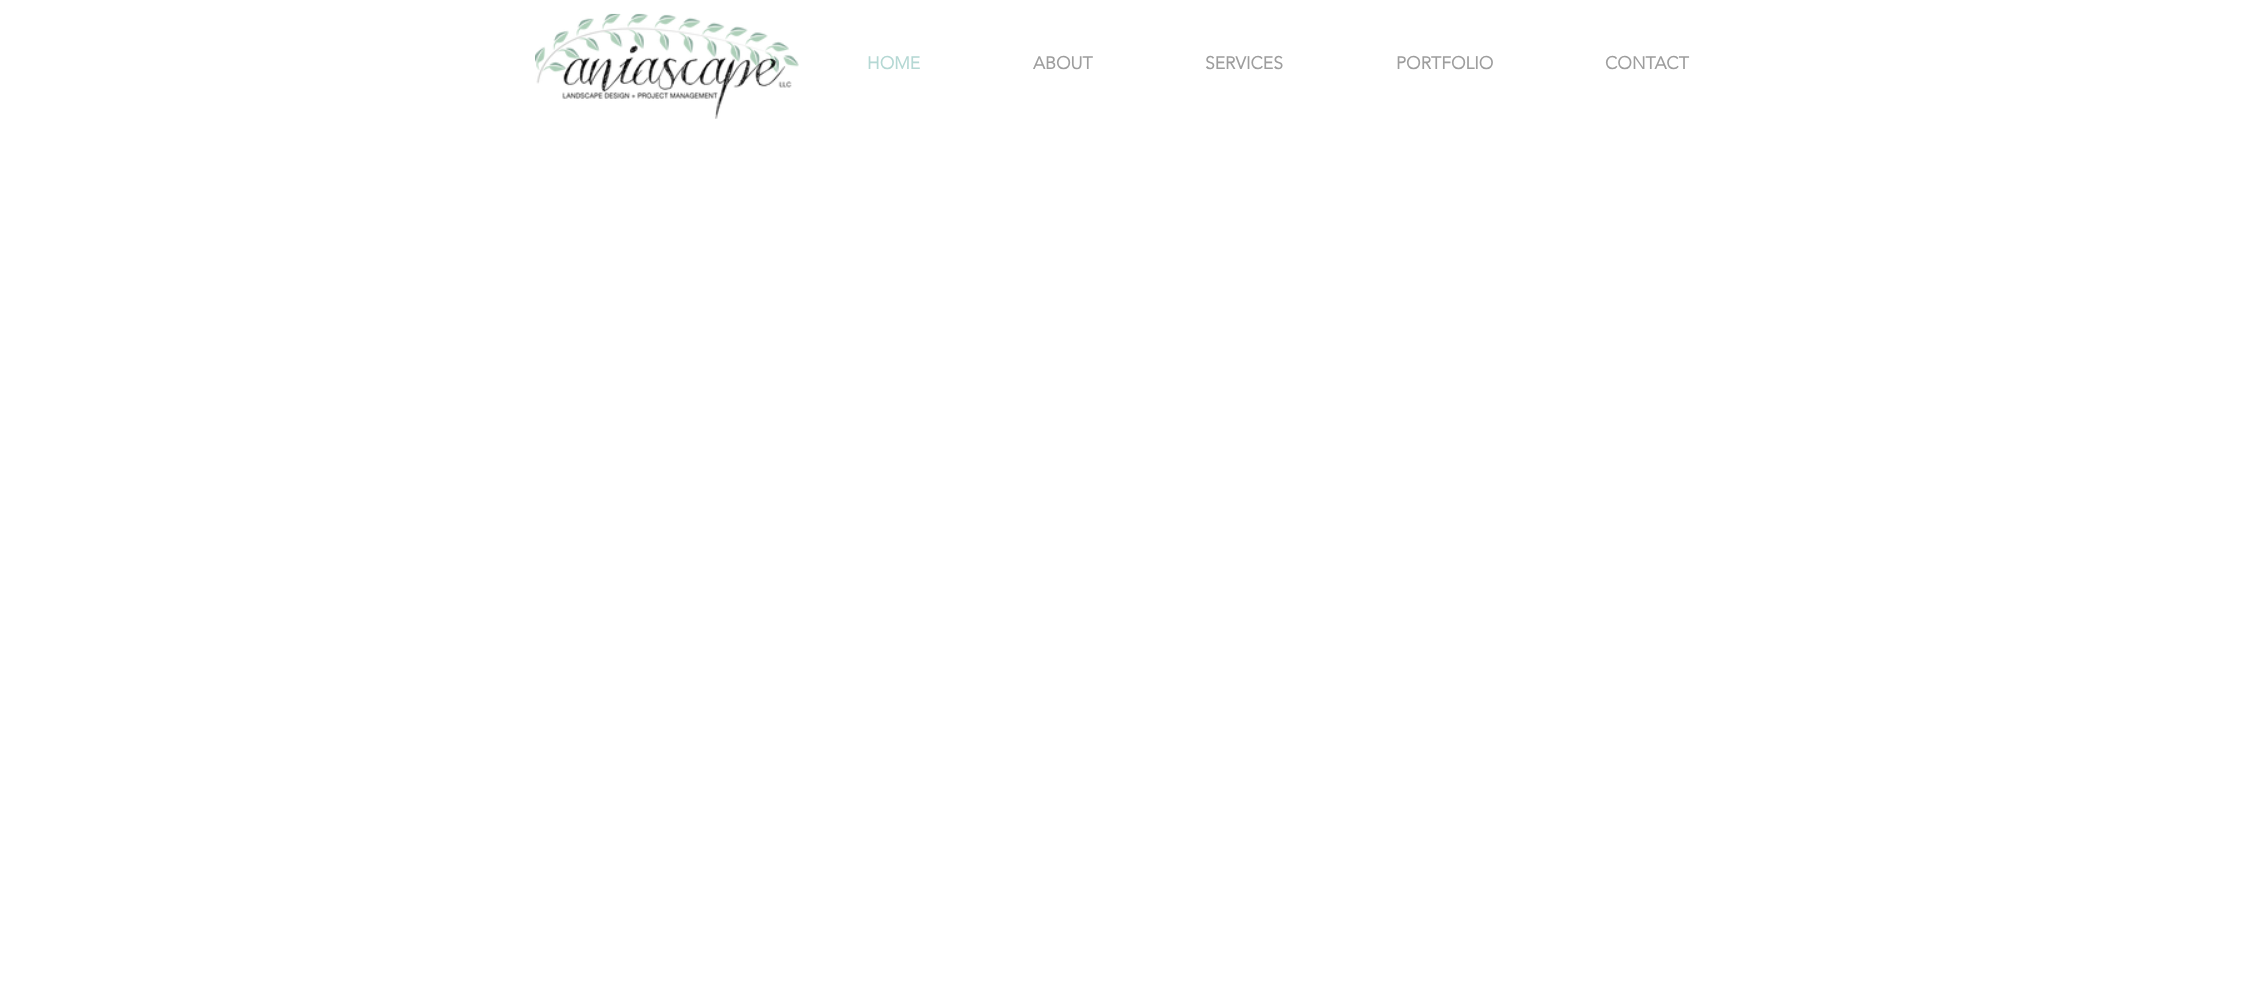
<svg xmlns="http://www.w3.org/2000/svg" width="2266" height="987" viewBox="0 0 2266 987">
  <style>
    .t1 { font: bold 17.5px 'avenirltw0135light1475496'; fill: #b5d8d4; }
    .t2 { font: bold 17.5px 'avenirltw0135light1475496'; fill: #9e9e9e; }
  </style>
  <rect width="100%" height="100%" fill="#fff"/>
  <image x="535" y="13" width="264" height="106" href="images/1.png"/>
  <text x="867" y="69" class="t1">HOME</text>
  <text x="1033" y="69" class="t2">ABOUT</text>
  <text x="1205" y="69" class="t2">SERVICES</text>
  <text x="1396" y="69" class="t2">PORTFOLIO</text>
  <text x="1605" y="69" class="t2">CONTACT</text>
</svg>
